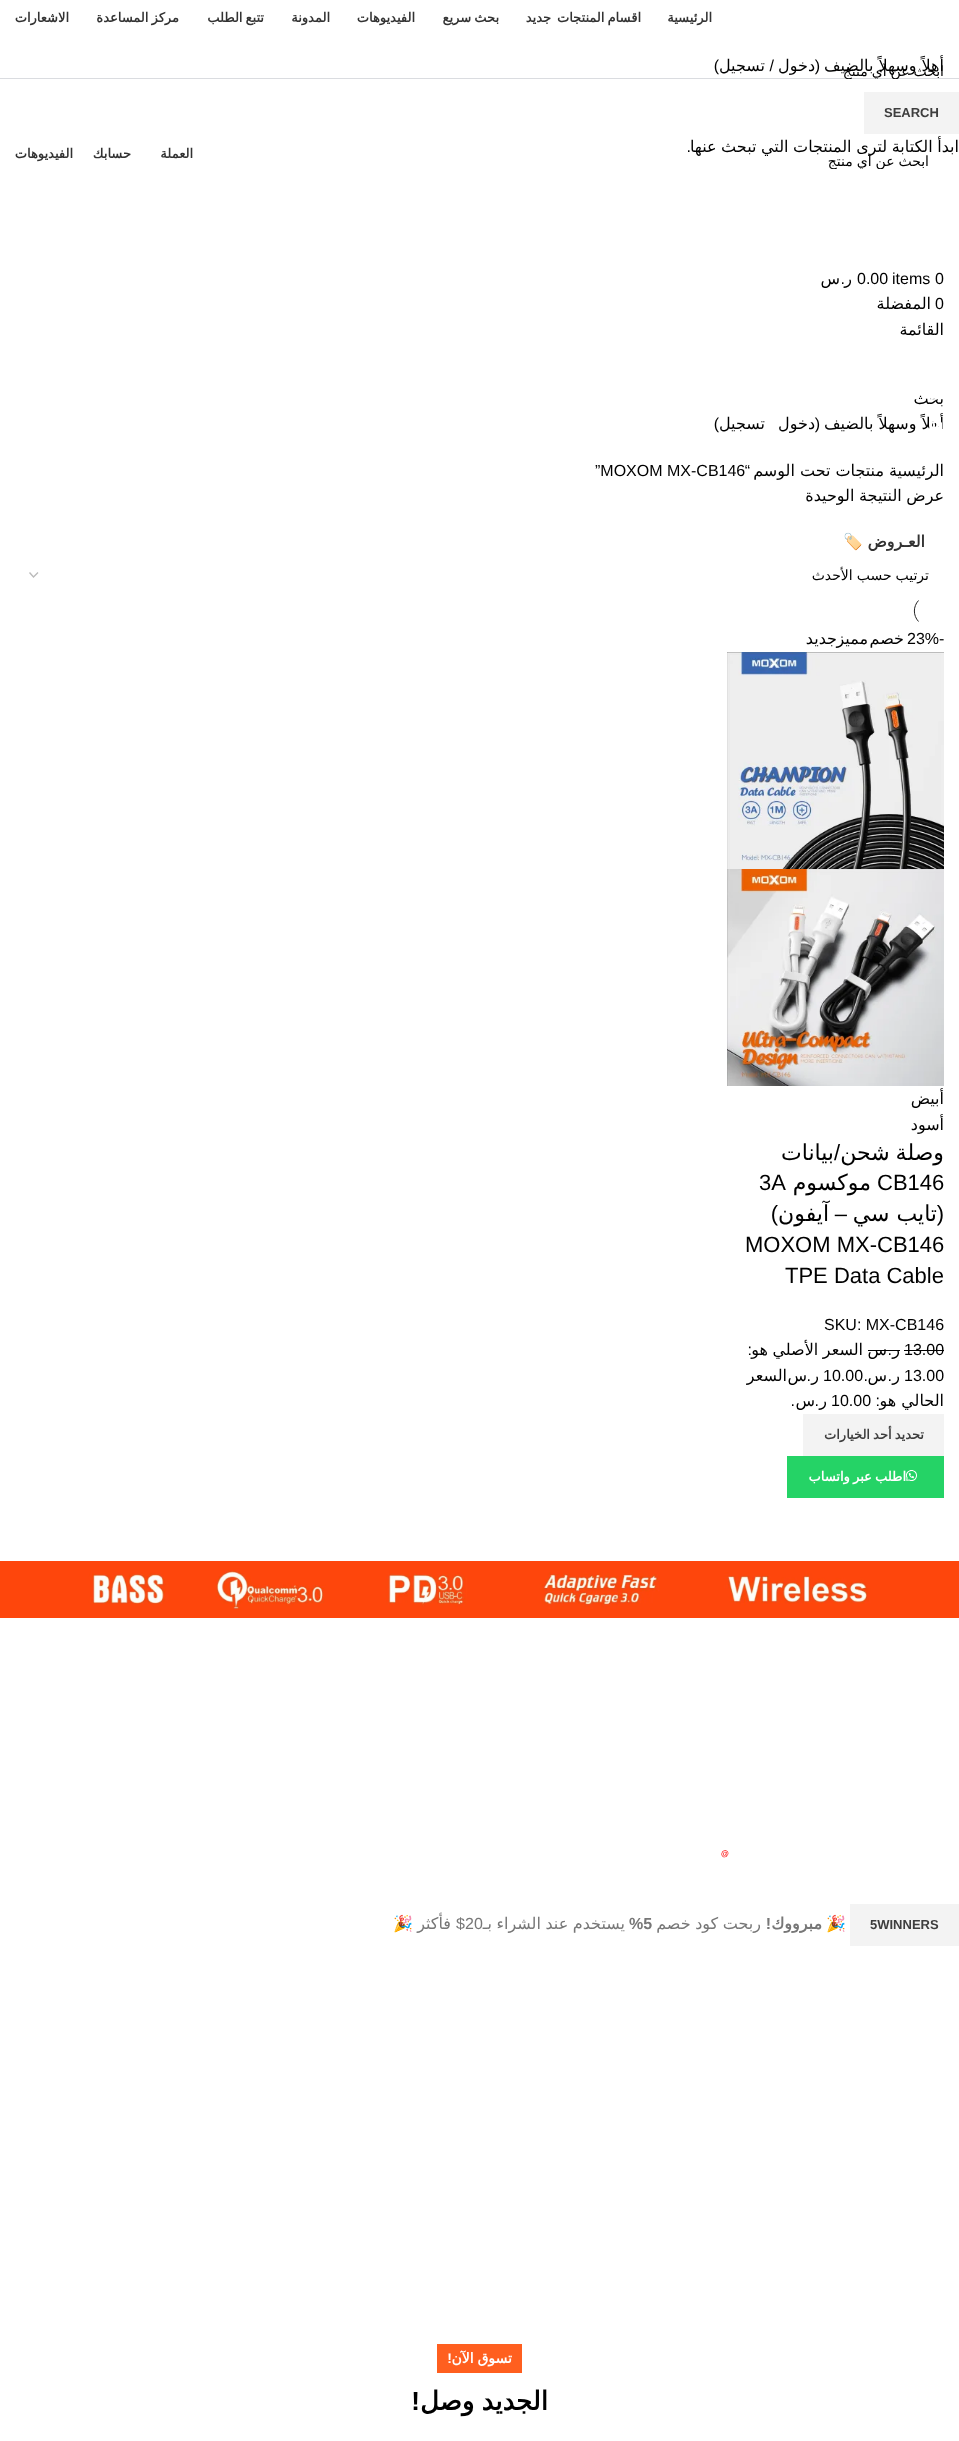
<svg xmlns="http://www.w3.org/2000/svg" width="959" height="2441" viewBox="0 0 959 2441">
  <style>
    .t1 { font: bold 13px DejaVu Sans; direction: rtl; fill: #333; }
    .t2 { font: 16px DejaVu Sans; direction: rtl; fill: #000; }
    .t3 { font: 16px Liberation Sans; direction: rtl; fill: #000; }
    .t4 { font: 14px DejaVu Sans; direction: rtl; fill: #000; }
    .t5 { font: 16px Liberation Sans; fill: #000; }
    .t6 { font: bold 16px DejaVu Sans; direction: rtl; fill: #333; }
    .t7 { font: bold 16px Noto Color Emoji; direction: rtl; fill: #333; }
    .t8 { font: 22px DejaVu Sans; direction: rtl; fill: #000; }
    .t9 { font: 22px Liberation Sans; direction: rtl; fill: #000; }
    .t10 { font: 22px Liberation Sans; fill: #000; }
    .t11 { font: bold 13px DejaVu Sans; direction: rtl; fill: #3e3e3e; }
    .t12 { font: bold 13px DejaVu Sans; direction: rtl; fill: #fff; }
    .t13 { font: bold 8px Liberation Sans; fill: #f00; }
    .t14 { font: bold 13px Liberation Sans; fill: #3e3e3e; }
    .t15 { font: 16px Noto Color Emoji; fill: #777; }
    .t16 { font: bold 16px DejaVu Sans; direction: rtl; fill: #777; }
    .t17 { font: bold 16px Liberation Sans; direction: rtl; fill: #777; }
    .t18 { font: 16px DejaVu Sans; direction: rtl; fill: #777; }
    .t19 { font: bold 16px Liberation Sans; fill: #777; }
    .t20 { font: 16px Liberation Sans; fill: #777; }
    .t21 { font: 16px Liberation Sans; direction: rtl; fill: #777; }
    .t22 { font: 16px Noto Color Emoji; direction: rtl; fill: #777; }
    .t23 { font: bold 14px DejaVu Sans; direction: rtl; fill: #fff; }
    .t24 { font: bold 14px Liberation Sans; direction: rtl; fill: #fff; }
    .t25 { font: bold 26px DejaVu Sans; direction: rtl; fill: #000; }
    .t26 { font: bold 26px Liberation Sans; direction: rtl; fill: #000; }
  </style>
  <defs>
    <clipPath id="clip1"><rect x="30" y="153" width="899" height="16"/></clipPath>
    <clipPath id="clip2"><rect x="15" y="63" width="929" height="16"/></clipPath>
  </defs>
  <rect width="100%" height="100%" fill="#fff"/>
  <rect x="0" y="78" width="959" height="1" fill="#dadce0"/>
  <text x="712" y="22" class="t1">الرئيسية</text>
  <text x="641" y="22" word-spacing="-1" class="t1">اقسام المنتجات</text>
  <text x="551" y="22" class="t1">جديد</text>
  <text x="499" y="22" word-spacing="-1" class="t1">بحث سريع</text>
  <text x="415" y="22" class="t1">الفيديوهات</text>
  <text x="330" y="22" class="t1">المدونة</text>
  <text x="264" y="22" word-spacing="-1" class="t1">تتبع الطلب</text>
  <text x="179" y="22" word-spacing="-1" class="t1">مركز المساعدة</text>
  <text x="69" y="22" class="t1">الاشعارات</text>
  <text x="944" y="71" class="t2">أهلاً وسهلاً بالضيف</text>
  <text x="820" y="71" class="t3">(</text>
  <text x="815" y="71" class="t2">دخول</text>
  <text x="774" y="71" class="t3">/</text>
  <text x="765" y="71" class="t2">تسجيل</text>
  <text x="719" y="71" class="t3">)</text>
  <g clip-path="url(#clip1)">
    <text x="929" y="166" word-spacing="-0.5" class="t4">ابحث عن أي منتج</text>
  </g>
  <text x="935" y="284" class="t5">0</text>
  <text x="892" y="284" class="t5">items</text>
  <text x="857" y="284" class="t5">0.00</text>
  <text x="845" y="284" class="t3">.</text>
  <text x="852" y="284" class="t2">ر</text>
  <text x="840" y="284" class="t2">س</text>
  <text x="935" y="309" class="t5">0</text>
  <text x="931" y="309" class="t2">المفضلة</text>
  <text x="944" y="335" class="t2">القائمة</text>
  <text x="944" y="404" class="t2">بحث</text>
  <text x="944" y="429" class="t2">أهلاً وسهلاً بالضيف</text>
  <text x="820" y="429" class="t3">(</text>
  <text x="815" y="429" class="t2">دخول</text>
  <text x="765" y="429" class="t2">تسجيل</text>
  <text x="719" y="429" class="t3">)</text>
  <text x="193" y="158" class="t1">العملة</text>
  <text x="131" y="158" class="t1">حسابك</text>
  <text x="73" y="158" class="t1">الفيديوهات</text>
  <image x="930" y="397" width="8" height="4" href="images/1.png"/>
  <image x="929" y="421" width="13" height="9" href="images/2.png"/>
  <text x="944" y="476" class="t2">الرئيسية</text>
  <text x="884" y="476" class="t2">منتجات تحت الوسم</text>
  <text x="750" y="476" class="t3">“</text>
  <text x="595" y="476" class="t5">”MOXOM MX-CB146</text>
  <text x="944" y="501" word-spacing="-0.5" class="t2">عرض النتيجة الوحيدة</text>
  <text x="925" y="547" class="t6">العـروض</text>
  <text x="863" y="547" class="t7">🏷️</text>
  <path d="M29.5 572.5L33.5 577L38 572.5" fill="none" stroke="#bbb" stroke-width="1.4"/>
  <text x="929" y="580" word-spacing="-0.5" class="t4">ترتيب حسب الأحدث</text>
  <path d="M918.5 621.5C913 615.5 913 606.5 918.5 600.5" fill="none" stroke="#242424"/>
  <text x="907" y="644" class="t5">23%-</text>
  <text x="904" y="644" class="t2">خصم</text>
  <text x="868" y="644" class="t2">مميز</text>
  <text x="837" y="644" class="t2">جديد</text>
  <image x="727" y="652" width="217" height="217" href="images/3.png"/>
  <image x="727" y="869" width="217" height="217" href="images/4.png"/>
  <text x="944" y="1104" class="t2">أبيض</text>
  <text x="944" y="1130" class="t2">أسود</text>
  <text x="944" y="1160" word-spacing="-1" class="t8">وصلة شحن</text>
  <text x="840" y="1160" class="t9">/</text>
  <text x="834" y="1160" class="t8">بيانات</text>
  <text x="877" y="1190" class="t10">CB146</text>
  <text x="871" y="1190" class="t8">موكسوم</text>
  <text x="759" y="1190" class="t10">3A</text>
  <text x="944" y="1221" class="t9">(</text>
  <text x="937" y="1221" class="t8">تايب سي</text>
  <text x="847" y="1221" class="t9">–</text>
  <text x="829" y="1221" class="t8">آيفون</text>
  <text x="778" y="1221" class="t9">)</text>
  <text x="745" y="1252" class="t10">MOXOM MX-CB146</text>
  <text x="785" y="1283" class="t10">TPE Data Cable</text>
  <text x="824" y="1330" class="t5">SKU: MX-CB146</text>
  <text x="904" y="1355" class="t5">13.00</text>
  <rect x="904" y="1350" width="40" height="1" fill="#000"/>
  <rect x="868" y="1350" width="32" height="1" fill="#000"/>
  <text x="900" y="1355" class="t2">ر</text>
  <text x="892" y="1355" class="t3">.</text>
  <text x="887" y="1355" class="t2">س</text>
  <text x="863" y="1355" word-spacing="-0.5" class="t2">السعر الأصلي هو</text>
  <text x="752" y="1355" class="t3">:</text>
  <text x="904" y="1381" class="t5">13.00</text>
  <text x="900" y="1381" class="t2">ر</text>
  <text x="892" y="1381" class="t3">.</text>
  <text x="887" y="1381" class="t2">س</text>
  <text x="868" y="1381" class="t3">.</text>
  <text x="823" y="1381" class="t5">10.00</text>
  <text x="819" y="1381" class="t2">ر</text>
  <text x="811" y="1381" class="t3">.</text>
  <text x="807" y="1381" class="t2">س</text>
  <text x="787" y="1381" class="t2">السعر</text>
  <text x="944" y="1406" class="t2">الحالي هو</text>
  <text x="880" y="1406" class="t3">:</text>
  <text x="831" y="1406" class="t5">10.00</text>
  <text x="827" y="1406" class="t2">ر</text>
  <text x="819" y="1406" class="t3">.</text>
  <text x="815" y="1406" class="t2">س</text>
  <text x="795" y="1406" class="t3">.</text>
  <rect x="803" y="1414" width="141" height="42" fill="#f3f3f3"/>
  <text x="924" y="1439" word-spacing="-1" class="t11">تحديد أحد الخيارات</text>
  <rect x="787" y="1456" width="157" height="42" fill="#25d366"/>
  <image x="906" y="1470" width="11" height="11" href="images/5.png"/>
  <text x="906" y="1481" word-spacing="-1" class="t12">اطلب عبر واتساب</text>
  <image x="0" y="1561" width="959" height="57" href="images/6.png"/>
  <text x="721" y="1856" class="t13">@</text>
  <g clip-path="url(#clip2)">
    <text x="944" y="76" word-spacing="-0.5" class="t4">ابحث عن أي منتج</text>
  </g>
  <rect x="864" y="92" width="95" height="42" fill="#f3f3f3"/>
  <text x="884" y="117" class="t14">SEARCH</text>
  <text x="959" y="152" word-spacing="-0.5" class="t2">ابدأ الكتابة لترى المنتجات التي تبحث عنها</text>
  <text x="691" y="152" class="t3">.</text>
  <rect x="850" y="1904" width="109" height="42" fill="#f3f3f3"/>
  <text x="870" y="1929" class="t14">5WINNERS</text>
  <text x="826" y="1929" class="t15">🎉</text>
  <text x="822" y="1929" class="t16">مبرووك</text>
  <text x="771" y="1929" class="t17">!</text>
  <text x="761" y="1929" word-spacing="-0.5" class="t18">ربحت كود خصم</text>
  <text x="629" y="1929" class="t19">%5</text>
  <text x="625" y="1929" word-spacing="-0.5" class="t18">يستخدم عند الشراء بـ</text>
  <text x="465" y="1929" class="t20">20</text>
  <text x="465" y="1929" class="t21">$</text>
  <text x="451" y="1929" class="t18">فأكثر</text>
  <text x="413" y="1929" class="t22">🎉</text>
  <rect x="437" y="2344" width="85" height="29" fill="#ff5f1f"/>
  <text x="512" y="2363" word-spacing="-0.5" class="t23">تسوق الآن</text>
  <text x="452" y="2363" class="t24">!</text>
  <text x="548" y="2410" word-spacing="-1" class="t25">الجديد وصل</text>
  <text x="420" y="2410" class="t26">!</text>
</svg>
